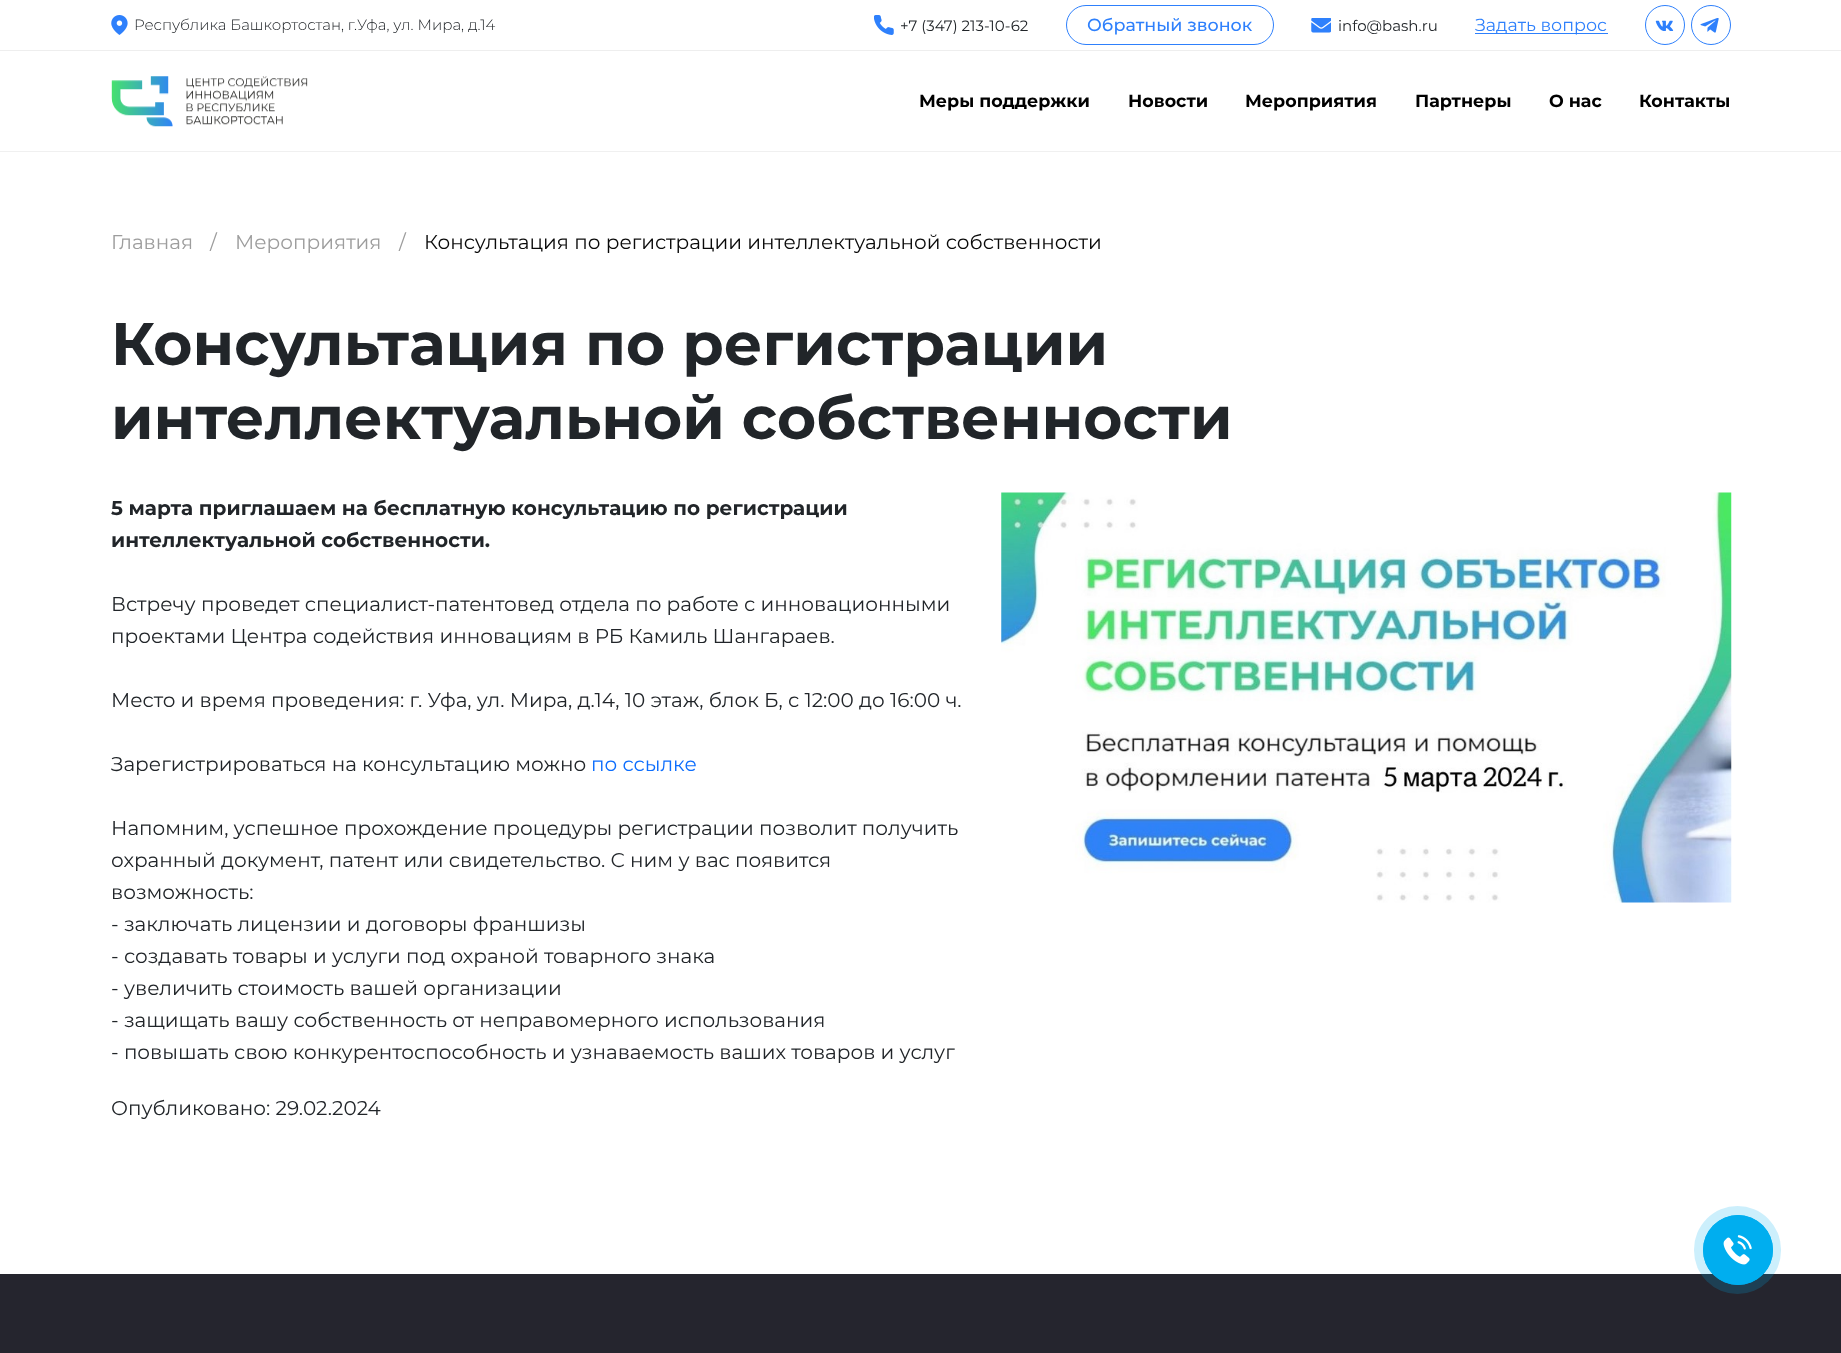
<svg xmlns="http://www.w3.org/2000/svg" width="1841" height="1353" viewBox="0 0 1841 1353">
  <style>
    .t1 { font: 300 15px Montserrat; fill: #212529; }
    .t2 { font: 15px Montserrat; fill: #212529; }
    .t3 { font: 500 17.5px Montserrat; fill: #2e80fc; }
    .t4 { font: 17.5px Montserrat; fill: #2e80fc; }
    .t5 { font: bold 17.5px Montserrat; fill: #000; }
    .t6 { font: 20px Montserrat; fill: #9d9d9d; }
    .t7 { font: 20px Montserrat; fill: #090909; }
    .t8 { font: bold 60px Montserrat; fill: #212529; }
    .t9 { font: bold 20px Montserrat; fill: #212529; }
    .t10 { font: 20px Montserrat; fill: #212529; }
    .t11 { font: 20px Montserrat; fill: #0d6efd; }
  </style>
  <rect width="100%" height="100%" fill="#fff"/>
  <rect x="0" y="50" width="1841" height="1" fill="#eee"/>
  <image x="111" y="15" width="17" height="20" href="images/1.png"/>
  <text x="134" y="30" class="t1">Республика Башкортостан, г.Уфа, ул. Мира, д.14</text>
  <image x="874" y="15" width="20" height="20" href="images/2.png"/>
  <text x="900" y="31" class="t2">+7 (347) 213-10-62</text>
  <rect x="1066.5" y="5.5" width="207" height="39" rx="19.5" fill="none" stroke="#2e80fc"/>
  <text x="1087" y="31" class="t3">Обратный звонок</text>
  <image x="1311" y="18" width="20" height="15" href="images/3.png"/>
  <text x="1338" y="31" class="t2">info@bash.ru</text>
  <rect x="1475" y="33" width="133" height="1" fill="#2e80fc"/>
  <text x="1475" y="31" class="t4">Задать вопрос</text>
  <circle cx="1665" cy="25" r="19.5" fill="none" stroke="#2e80fc"/>
  <image x="1655" y="20" width="19" height="11" href="images/4.png"/>
  <circle cx="1711" cy="25" r="19.5" fill="none" stroke="#2e80fc"/>
  <image x="1700" y="18" width="19" height="15" href="images/5.png"/>
  <rect x="0" y="151" width="1841" height="1" fill="#f0f0f0"/>
  <image x="111" y="76" width="197" height="51" href="images/6.png"/>
  <text x="919" y="107" class="t5">Меры поддержки</text>
  <text x="1128" y="107" class="t5">Новости</text>
  <text x="1245" y="107" class="t5">Мероприятия</text>
  <text x="1415" y="107" class="t5">Партнеры</text>
  <text x="1549" y="107" class="t5">О нас</text>
  <text x="1639" y="107" class="t5">Контакты</text>
  <text x="111" y="249" class="t6">Главная</text>
  <text x="210" y="249" class="t6">/</text>
  <text x="235" y="249" class="t6">Мероприятия</text>
  <text x="399" y="249" class="t6">/</text>
  <text x="424" y="249" class="t7">Консультация по регистрации интеллектуальной собственности</text>
  <text x="111" y="365" class="t8">Консультация по регистрации</text>
  <text x="111" y="439" class="t8">интеллектуальной собственности</text>
  <text x="111" y="515" class="t9">5 марта приглашаем на бесплатную консультацию по регистрации</text>
  <text x="111" y="547" class="t9">интеллектуальной собственности.</text>
  <text x="111" y="611" class="t10">Встречу проведет специалист-патентовед отдела по работе с инновационными</text>
  <text x="111" y="643" class="t10">проектами Центра содействия инновациям в РБ Камиль Шангараев.</text>
  <text x="111" y="707" class="t10">Место и время проведения: г. Уфа, ул. Мира, д.14, 10 этаж, блок Б, с 12:00 до 16:00 ч.</text>
  <text x="111" y="771" class="t10">Зарегистрироваться на консультацию можно</text>
  <text x="591" y="771" class="t11">по ссылке</text>
  <text x="111" y="835" class="t10">Напомним, успешное прохождение процедуры регистрации позволит получить</text>
  <text x="111" y="867" class="t10">охранный документ, патент или свидетельство. С ним у вас появится</text>
  <text x="111" y="899" class="t10">возможность:</text>
  <text x="111" y="931" class="t10">- заключать лицензии и договоры франшизы</text>
  <text x="111" y="963" class="t10">- создавать товары и услуги под охраной товарного знака</text>
  <text x="111" y="995" class="t10">- увеличить стоимость вашей организации</text>
  <text x="111" y="1027" class="t10">- защищать вашу собственность от неправомерного использования</text>
  <text x="111" y="1059" class="t10">- повышать свою конкурентоспособность и узнаваемость ваших товаров и услуг</text>
  <image x="1001" y="492" width="731" height="411" href="images/7.png"/>
  <text x="111" y="1115" class="t10">Опубликовано: 29.02.2024</text>
  <rect x="0" y="1274" width="1841" height="79" fill="#25252e"/>
  <rect x="1694" y="1206" width="87" height="88" rx="43.5" fill="#00aeef33"/>
  <circle cx="1738" cy="1250" r="34.5" fill="none" stroke="#00aeef"/>
  <circle cx="1738" cy="1250" r="35" fill="#00aeef"/>
  <image x="1723" y="1235" width="29" height="30" href="images/8.png"/>
</svg>
